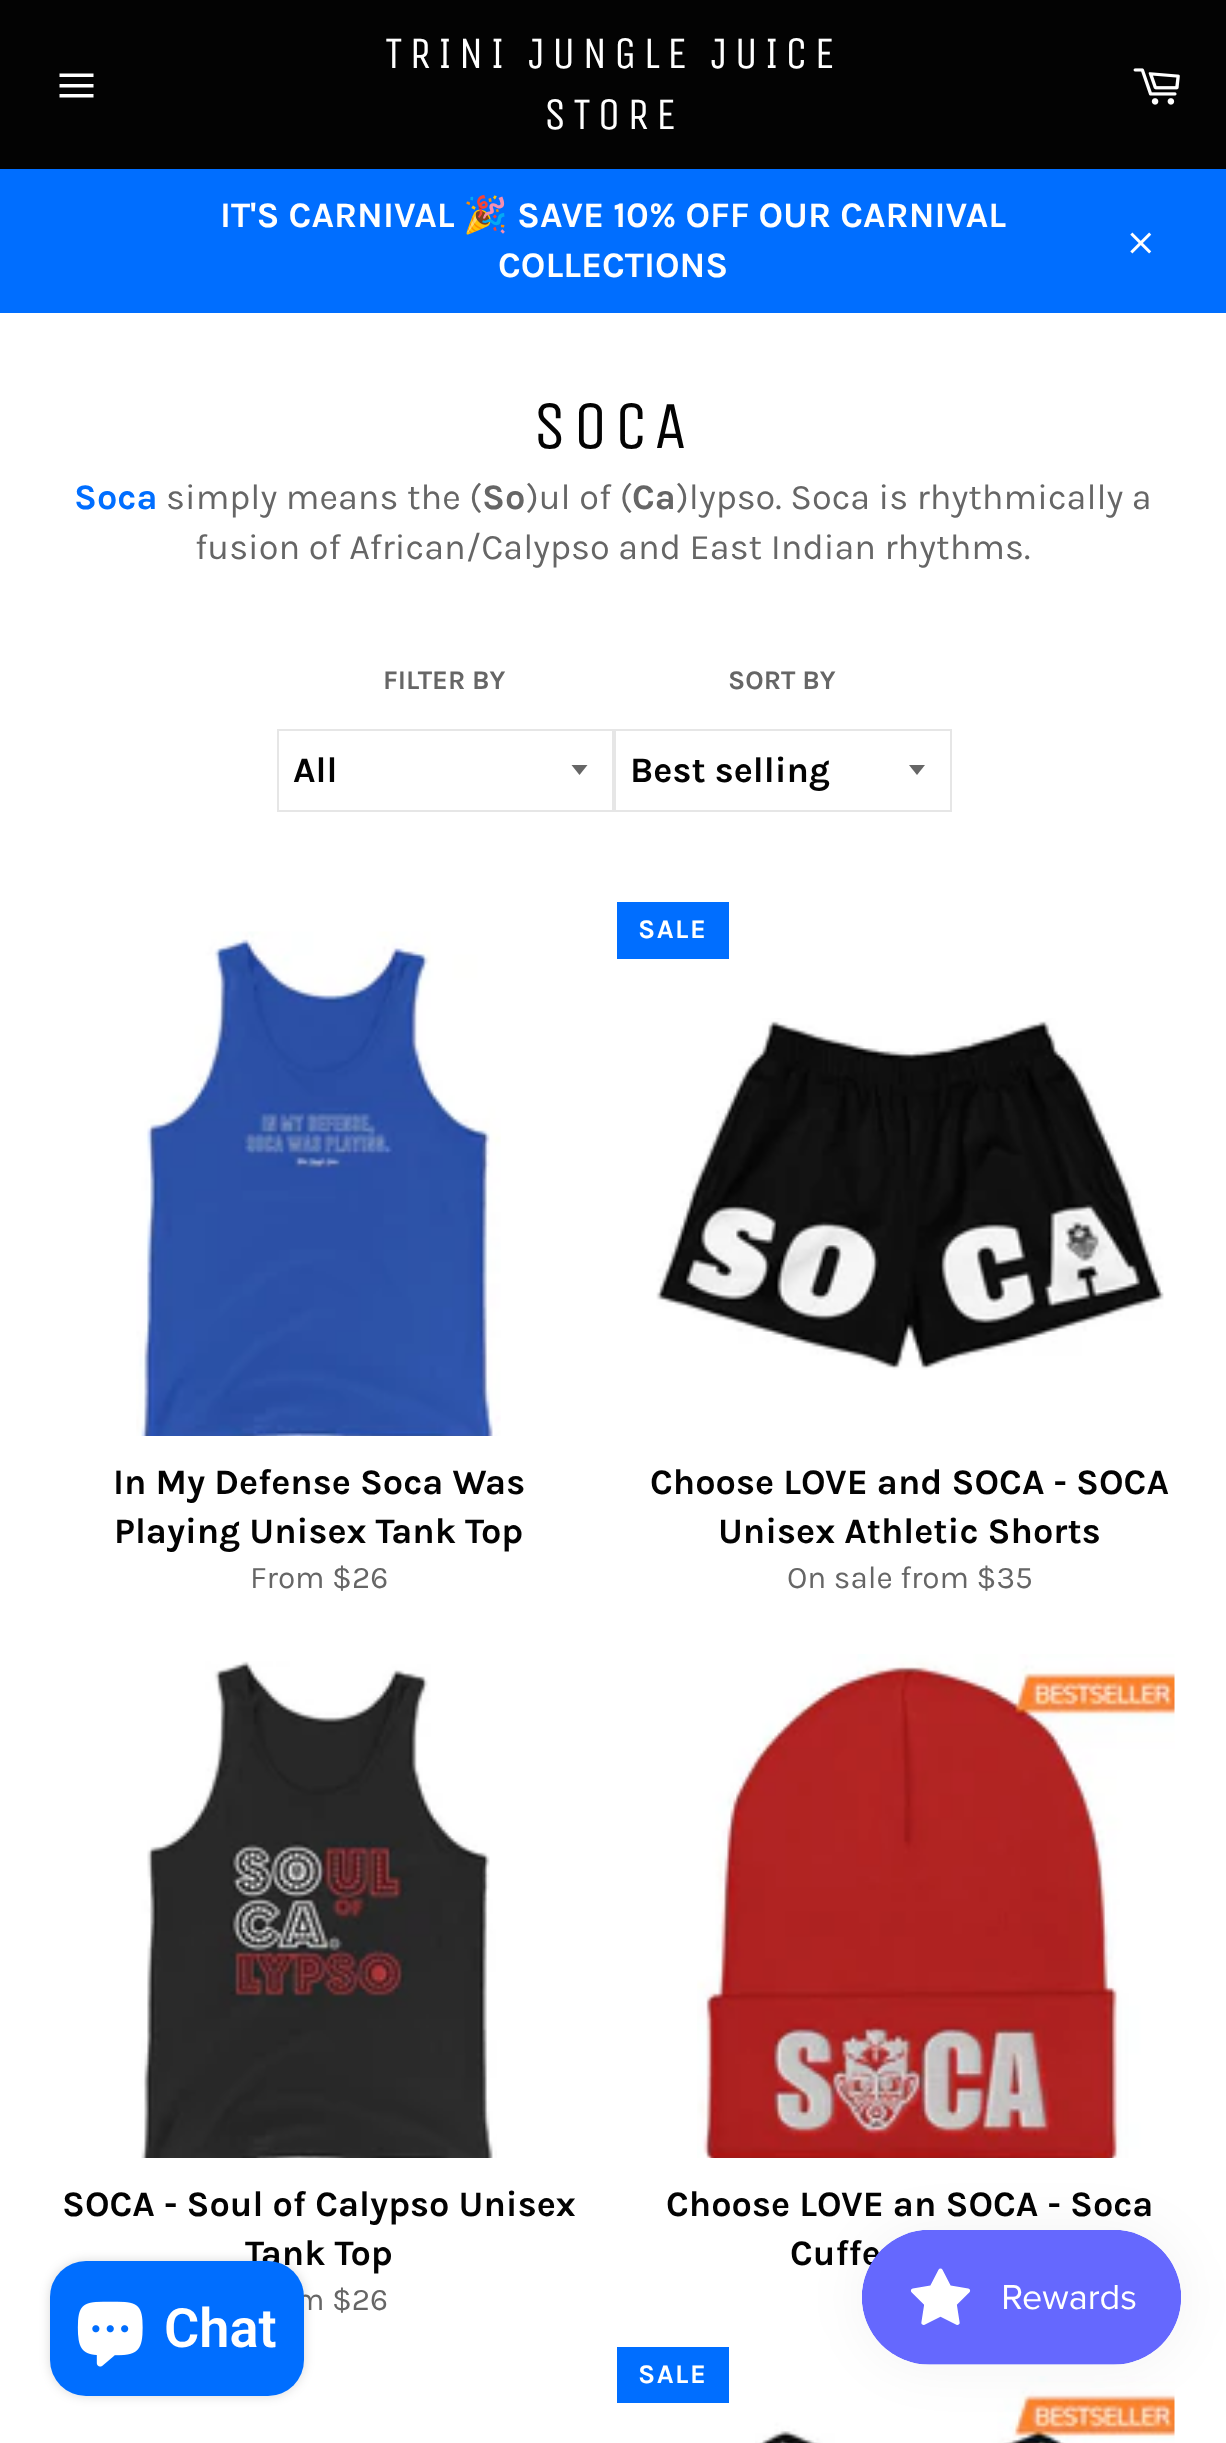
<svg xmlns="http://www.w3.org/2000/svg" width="1226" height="2443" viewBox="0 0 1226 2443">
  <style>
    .t1 { font: 45px Unica One; letter-spacing: 6.75px; fill: #fff; }
    .t2 { font: bold 36px Karla; fill: #fff; }
    .t3 { font: bold 36px Noto Color Emoji; fill: #fff; }
    .t4 { font: 67.5px Unica One; letter-spacing: 6.75px; fill: #030303; }
    .t5 { font: bold 36px Karla; fill: #006eff; }
    .t6 { font: 36px Karla; fill: #666; }
    .t7 { font: bold 36px Karla; fill: #666; }
    .t8 { font: bold 27px Karla; fill: #666; }
    .t9 { font: bold 36px Karla; fill: #030303; }
    .t10 { font: 31.5px Karla; fill: #666; }
    .t11 { font: bold 27px Karla; letter-spacing: 1.5px; fill: #fff; }
    .t12 { font: 600 54px Roboto; fill: #fff; }
  </style>
  <rect width="100%" height="100%" fill="#fff"/>
  <rect x="0" y="0" width="1226" height="169" fill="#030303"/>
  <path d="M59.5 84H93.5V87.5H59.5ZM59.5 73.5H93.5V77H59.5ZM59.5 94H93.5V97.5H59.5Z" fill="#fff"/>
  <text x="385" y="68" class="t1">TRINI JUNGLE JUICE</text>
  <text x="544" y="129" class="t1">STORE</text>
  <image x="1133" y="68" width="47" height="37" href="images/1.png"/>
  <rect x="0" y="169" width="1226" height="144" fill="#006eff"/>
  <text x="220" y="227" class="t2">IT'S CARNIVAL</text>
  <text x="463" y="227" class="t3">🎉</text>
  <text x="517" y="227" class="t2">SAVE 10% OFF OUR CARNIVAL</text>
  <text x="498" y="277" class="t2">COLLECTIONS</text>
  <image x="1130" y="232" width="22" height="22" href="images/2.png"/>
  <text x="533" y="448" class="t4">SOCA</text>
  <text x="74" y="509" class="t5">Soca</text>
  <text x="166" y="509" class="t6">simply means the (</text>
  <text x="482" y="509" class="t7">So</text>
  <text x="526" y="509" class="t6">)ul of (</text>
  <text x="632" y="509" class="t7">Ca</text>
  <text x="676" y="509" class="t6">)lypso. Soca is rhythmically a</text>
  <text x="195" y="559" class="t6">fusion of African/Calypso and East Indian rhythms.</text>
  <text x="383" y="689" class="t8">FILTER BY</text>
  <path d="M571.5 765L579.5 775L587.5 765Z" fill="#666"/>
  <rect x="278" y="730" width="335" height="81" fill="none" stroke="#e6e6e6" stroke-width="2"/>
  <text x="293" y="782" class="t9">All</text>
  <text x="728" y="689" class="t8">SORT BY</text>
  <path d="M909 765L917 775L925 765Z" fill="#666"/>
  <rect x="615" y="730" width="336" height="81" fill="none" stroke="#e6e6e6" stroke-width="2"/>
  <text x="630" y="782" class="t9">Best selling</text>
  <image x="136" y="931" width="365" height="505" href="images/3.png"/>
  <text x="113" y="1494" class="t9">In My Defense Soca Was</text>
  <text x="114" y="1543" class="t9">Playing Unisex Tank Top</text>
  <text x="250" y="1588" class="t10">From $26</text>
  <rect x="617" y="902" width="112" height="57" fill="#006eff"/>
  <text x="638" y="938" class="t11">SALE</text>
  <image x="656" y="1018" width="508" height="352" href="images/4.png"/>
  <text x="650" y="1494" class="t9">Choose LOVE and SOCA - SOCA</text>
  <text x="718" y="1543" class="t9">Unisex Athletic Shorts</text>
  <text x="787" y="1588" class="t10">On sale from $35</text>
  <image x="141" y="1661" width="356" height="497" href="images/5.png"/>
  <text x="62" y="2216" class="t9">SOCA - Soul of Calypso Unisex</text>
  <text x="245" y="2265" class="t9">Tank Top</text>
  <text x="295" y="2310" class="t10">m $26</text>
  <image x="697" y="1654" width="478" height="504" href="images/6.png"/>
  <text x="666" y="2216" class="t9">Choose LOVE an SOCA - Soca</text>
  <text x="790" y="2265" class="t9">Cuffe</text>
  <rect x="617" y="2347" width="112" height="56" fill="#006eff"/>
  <text x="638" y="2383" class="t11">SALE</text>
  <image x="755" y="2376" width="420" height="67" href="images/7.png"/>
  <rect x="50" y="2261" width="254" height="135" rx="36" fill="#00000026" filter="blur(5.5px)"/>
  <rect x="50" y="2261" width="254" height="135" rx="36" fill="#006eff"/>
  <image x="77" y="2301" width="66" height="66" href="images/8.png"/>
  <text x="164" y="2347" class="t12">Chat</text>
  <rect x="862" y="2230" width="319" height="135" rx="67.5" fill="#0000000d" filter="blur(28px)"/>
  <image x="862" y="2230" width="319" height="135" href="images/9.png"/>
</svg>
